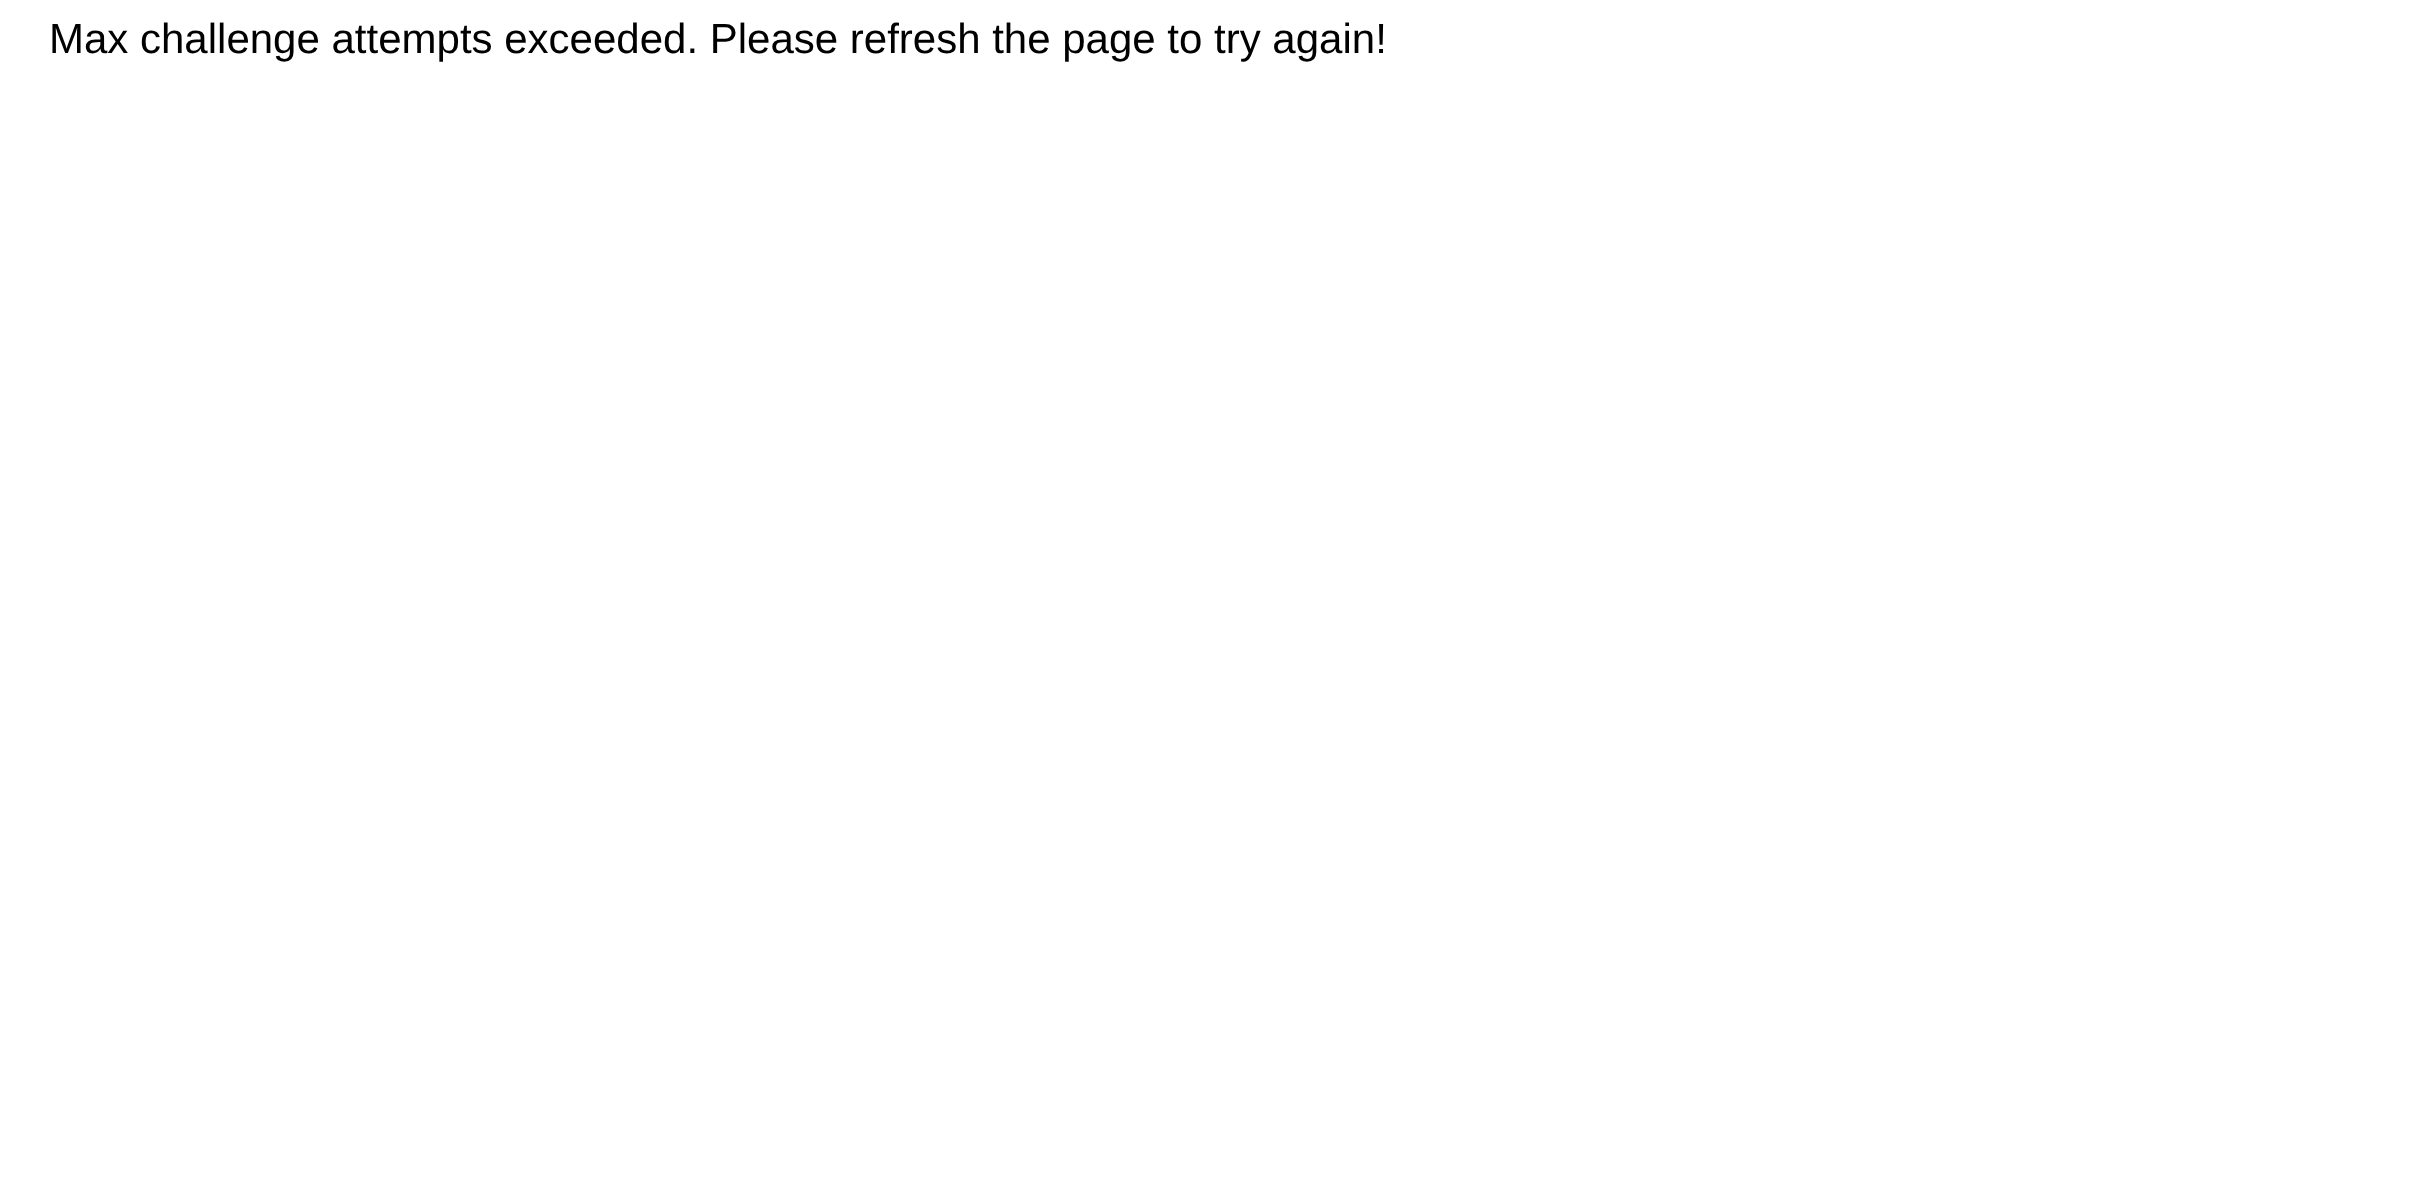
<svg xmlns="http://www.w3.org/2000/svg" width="2427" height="1194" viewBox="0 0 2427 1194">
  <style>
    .t1 { font: 42px Liberation Sans; fill: #000; }
  </style>
  <rect width="100%" height="100%" fill="#fff"/>
  <text x="49" y="53" class="t1">Max challenge attempts exceeded. Please refresh the page to try again!</text>
</svg>
